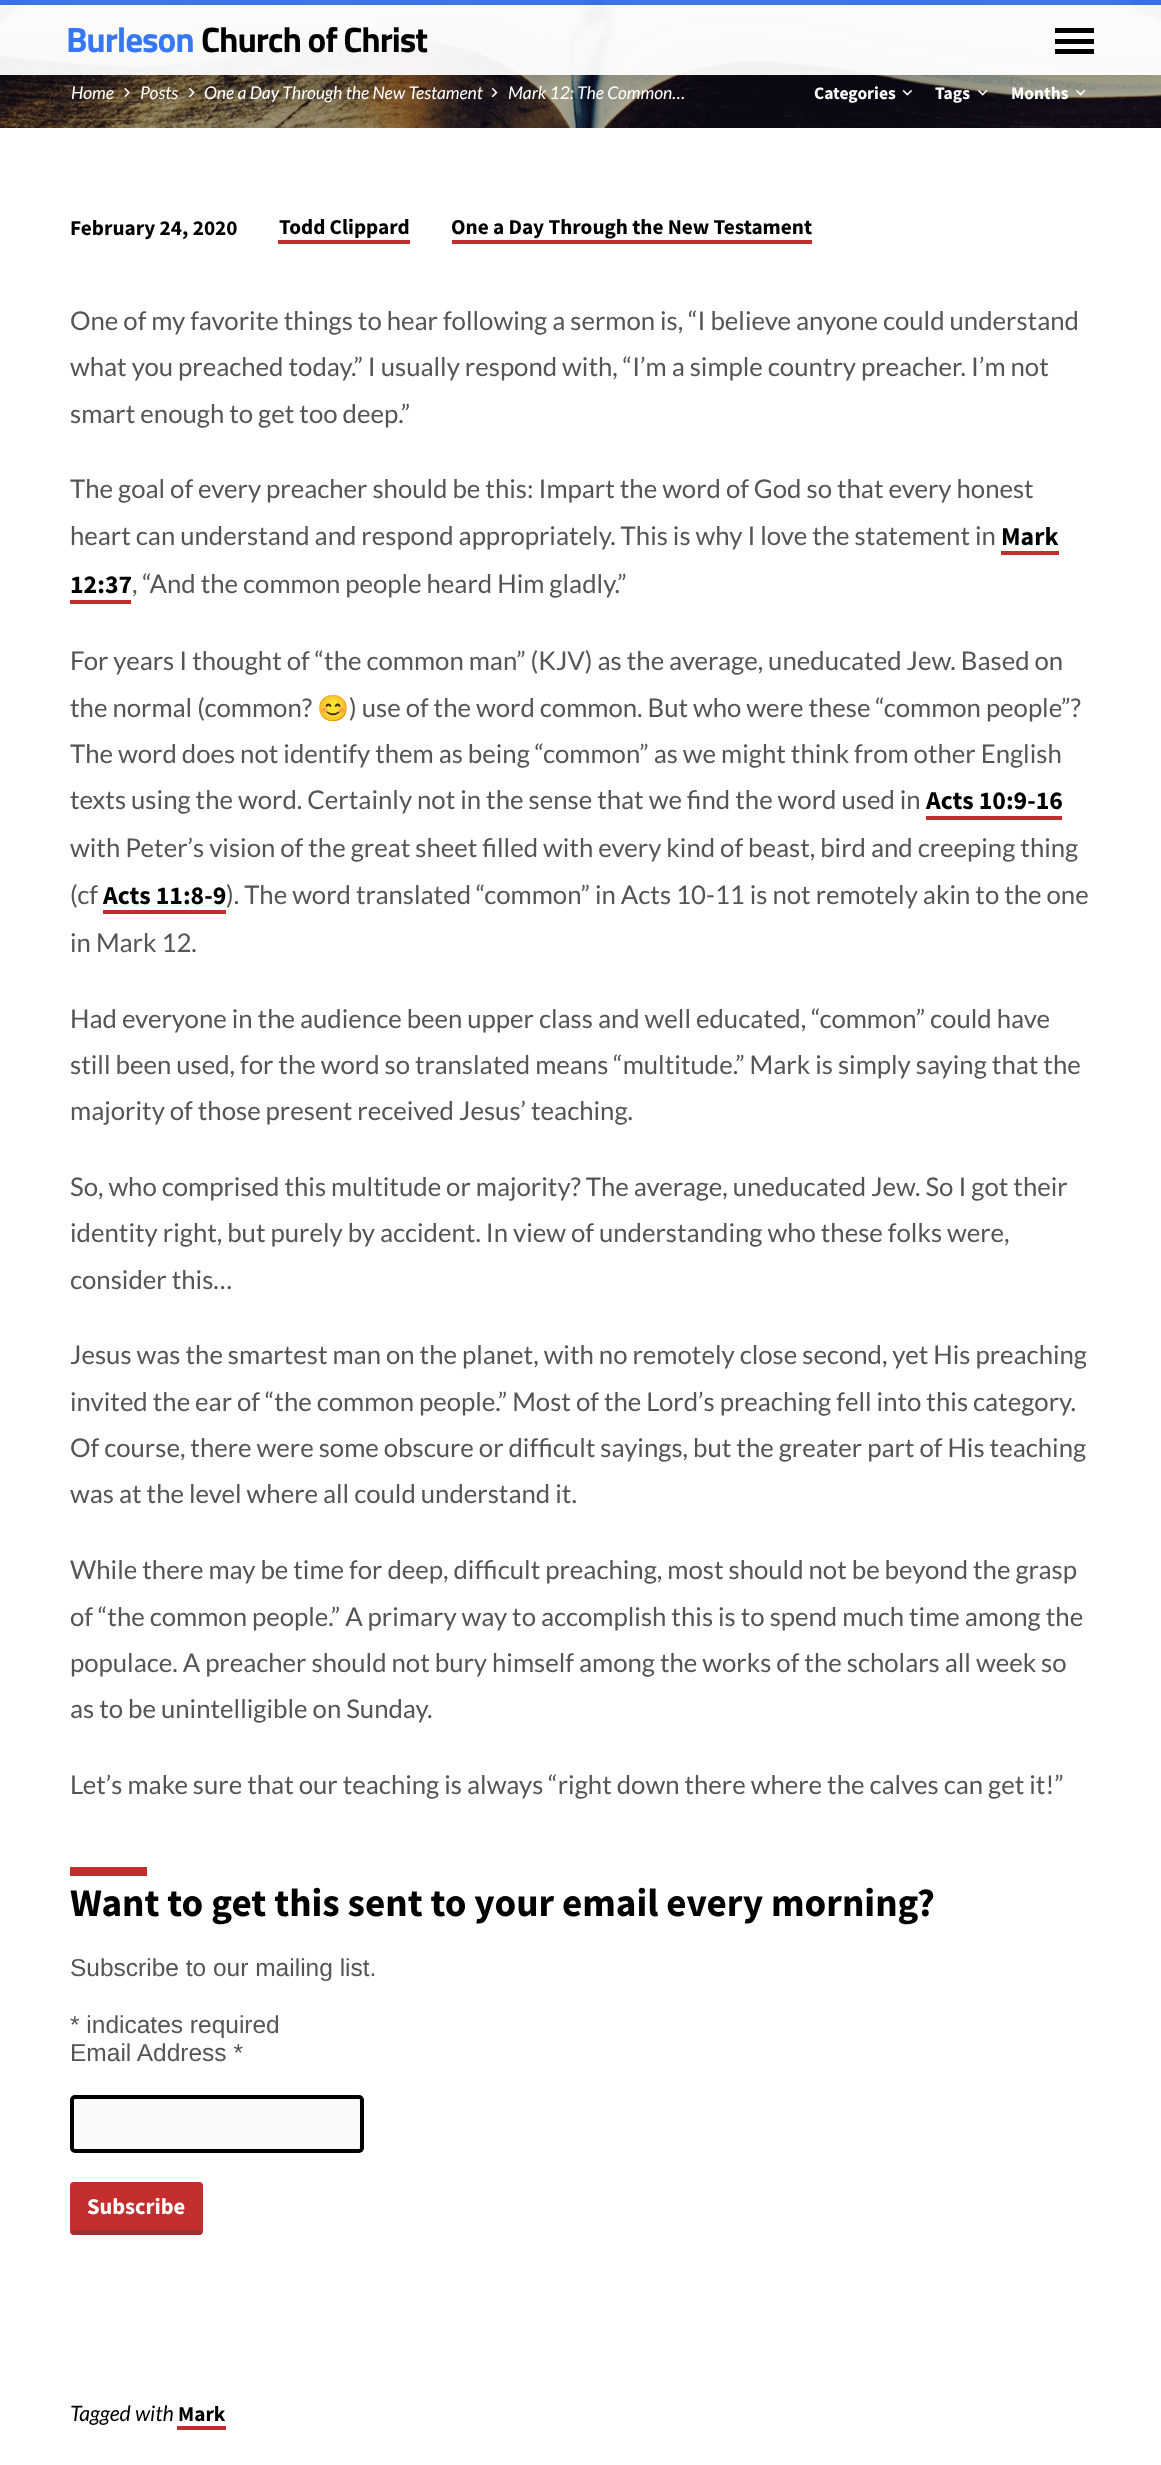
<svg xmlns="http://www.w3.org/2000/svg" width="1161" height="2465" viewBox="0 0 1161 2465">
  <style>
    .t1 { font: bold 35.25px Titillium Web; letter-spacing: -1.1px; fill: #3877f4; }
    .t2 { font: bold 35.25px Titillium Web; letter-spacing: -1.1px; fill: #000; }
    .t3 { font: italic 17.5px Lato; fill: #fff; }
    .t4 { font: bold 17.5px Source Sans Pro; fill: #fff; }
    .t5 { font: bold 21.25px Source Sans Pro; fill: #000; }
    .t6 { font: 25.75px Lato; fill: #555; }
    .t7 { font: bold 25.75px Source Sans Pro; fill: #000; }
    .t8 { font: 25.75px Noto Color Emoji; fill: #555; }
    .t9 { font: bold 39.2px Source Sans Pro; fill: #000; }
    .t10 { font: 24.5px Liberation Sans; fill: #555; }
    .t11 { font: bold 22.5px Source Sans Pro; fill: #fff; }
    .t12 { font: italic 21.25px Lato; fill: #000; }
  </style>
  <defs>
    <linearGradient id="g1" gradientUnits="userSpaceOnUse" x1="581" y1="-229" x2="581" y2="128"><stop offset="0" stop-color="#000" stop-opacity="0"/><stop offset="0.36" stop-color="#000" stop-opacity="0"/><stop offset="0.76" stop-color="#000" stop-opacity="0.28"/><stop offset="1" stop-color="#000" stop-opacity="0.28"/></linearGradient>
    <clipPath id="clip1"><path d="M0 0H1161V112H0ZM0 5H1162V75H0Z" clip-rule="evenodd"/></clipPath>
  </defs>
  <rect width="100%" height="100%" fill="#fff"/>
  <image x="0" y="0" width="1161" height="128" href="images/1.png"/>
  <rect x="0" y="0" width="1161" height="128" fill="url(#g1)"/>
  <rect x="0" y="0" width="1161" height="5" fill="#3877f4f2"/>
  <rect x="0" y="5" width="1161" height="70" fill="#fffffff2"/>
  <image x="124" y="87" width="6" height="11" href="images/2.png"/>
  <image x="189" y="87" width="6" height="11" href="images/3.png"/>
  <image x="491" y="87" width="7" height="11" href="images/4.png"/>
  <image x="902" y="89" width="11" height="7" href="images/5.png"/>
  <image x="977" y="89" width="11" height="7" href="images/6.png"/>
  <image x="1076" y="89" width="10" height="7" href="images/7.png"/>
  <g clip-path="url(#clip1)">
    <rect x="0" y="9" width="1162" height="70" fill="#00000024" filter="blur(10.5px)"/>
  </g>
  <text x="66" y="52" class="t1">Burleson</text>
  <text x="201" y="52" class="t2">Church of Christ</text>
  <rect x="1055" y="28" width="39" height="5" fill="#000"/>
  <rect x="1055" y="39" width="39" height="5" fill="#000"/>
  <rect x="1055" y="49" width="39" height="5" fill="#000"/>
  <text x="71" y="99" class="t3">Home</text>
  <text x="140" y="99" class="t3">Posts</text>
  <text x="204" y="99" class="t3">One a Day Through the New Testament</text>
  <text x="508" y="99" class="t3">Mark 12: The Common…</text>
  <text x="814" y="99" class="t4">Categories</text>
  <text x="935" y="99" class="t4">Tags</text>
  <text x="1011" y="99" class="t4">Months</text>
  <text x="70" y="235" class="t5">February 24, 2020</text>
  <text x="279" y="234" class="t5">Todd Clippard</text>
  <rect x="278" y="240" width="132" height="4" fill="#c42d2d"/>
  <text x="451" y="234" class="t5">One a Day Through the New Testament</text>
  <rect x="452" y="240" width="360" height="4" fill="#c42d2d"/>
  <text x="70" y="330" class="t6">One of my favorite things to hear following a sermon is, “I believe anyone could understand</text>
  <text x="70" y="376" class="t6">what you preached today.” I usually respond with, “I’m a simple country preacher. I’m not</text>
  <text x="70" y="423" class="t6">smart enough to get too deep.”</text>
  <text x="70" y="498" class="t6">The goal of every preacher should be this: Impart the word of God so that every honest</text>
  <text x="70" y="545" class="t6">heart can understand and respond appropriately. This is why I love the statement in</text>
  <text x="1001" y="545" class="t7">Mark</text>
  <rect x="1001" y="551" width="58" height="4" fill="#c42d2d"/>
  <text x="70" y="593" class="t7">12:37</text>
  <rect x="70" y="600" width="61" height="4" fill="#c42d2d"/>
  <text x="132" y="593" class="t6">, “And the common people heard Him gladly.”</text>
  <text x="70" y="670" class="t6">For years I thought of “the common man” (KJV) as the average, uneducated Jew. Based on</text>
  <text x="70" y="717" class="t6">the normal (common?</text>
  <text x="317" y="717" class="t8">😊</text>
  <text x="349" y="717" class="t6">) use of the word common. But who were these “common people”?</text>
  <text x="70" y="763" class="t6">The word does not identify them as being “common” as we might think from other English</text>
  <text x="70" y="809" class="t6">texts using the word. Certainly not in the sense that we find the word used in</text>
  <text x="926" y="809" class="t7">Acts 10:9-16</text>
  <rect x="926" y="816" width="136" height="4" fill="#c42d2d"/>
  <text x="70" y="857" class="t6">with Peter’s vision of the great sheet filled with every kind of beast, bird and creeping thing</text>
  <text x="70" y="904" class="t6">(cf</text>
  <text x="103" y="904" class="t7">Acts 11:8-9</text>
  <rect x="103" y="910" width="123" height="4" fill="#c42d2d"/>
  <text x="226" y="904" class="t6">). The word translated “common” in Acts 10-11 is not remotely akin to the one</text>
  <text x="70" y="952" class="t6">in Mark 12.</text>
  <text x="70" y="1028" class="t6">Had everyone in the audience been upper class and well educated, “common” could have</text>
  <text x="70" y="1074" class="t6">still been used, for the word so translated means “multitude.” Mark is simply saying that the</text>
  <text x="70" y="1120" class="t6">majority of those present received Jesus’ teaching.</text>
  <text x="70" y="1196" class="t6">So, who comprised this multitude or majority? The average, uneducated Jew. So I got their</text>
  <text x="70" y="1242" class="t6">identity right, but purely by accident. In view of understanding who these folks were,</text>
  <text x="70" y="1289" class="t6">consider this…</text>
  <text x="70" y="1364" class="t6">Jesus was the smartest man on the planet, with no remotely close second, yet His preaching</text>
  <text x="70" y="1411" class="t6">invited the ear of “the common people.” Most of the Lord’s preaching fell into this category.</text>
  <text x="70" y="1457" class="t6">Of course, there were some obscure or difficult sayings, but the greater part of His teaching</text>
  <text x="70" y="1503" class="t6">was at the level where all could understand it.</text>
  <text x="70" y="1579" class="t6">While there may be time for deep, difficult preaching, most should not be beyond the grasp</text>
  <text x="70" y="1626" class="t6">of “the common people.” A primary way to accomplish this is to spend much time among the</text>
  <text x="70" y="1672" class="t6">populace. A preacher should not bury himself among the works of the scholars all week so</text>
  <text x="70" y="1718" class="t6">as to be unintelligible on Sunday.</text>
  <text x="70" y="1794" class="t6">Let’s make sure that our teaching is always “right down there where the calves can get it!”</text>
  <rect x="70" y="1867" width="77" height="9" fill="#c42d2d"/>
  <text x="70" y="1916" class="t9">Want to get this sent to your email every morning?</text>
  <text x="70" y="1976" class="t10">Subscribe to our mailing list.</text>
  <text x="70" y="2033" class="t10">* indicates required</text>
  <text x="70" y="2061" class="t10">Email Address *</text>
  <rect x="72" y="2097" width="290" height="54" rx="3" fill="#fafafa" stroke="#000" stroke-width="4"/>
  <rect x="70" y="2182" width="133" height="53" rx="4" fill="#c42d2d"/>
  <rect x="72" y="2230" width="129" height="5" fill="#32323240"/>
  <text x="87" y="2214" class="t11">Subscribe</text>
  <text x="70" y="2421" class="t12">Tagged with</text>
  <text x="178" y="2421" class="t5">Mark</text>
  <rect x="177" y="2426" width="49" height="4" fill="#c42d2d"/>
</svg>
